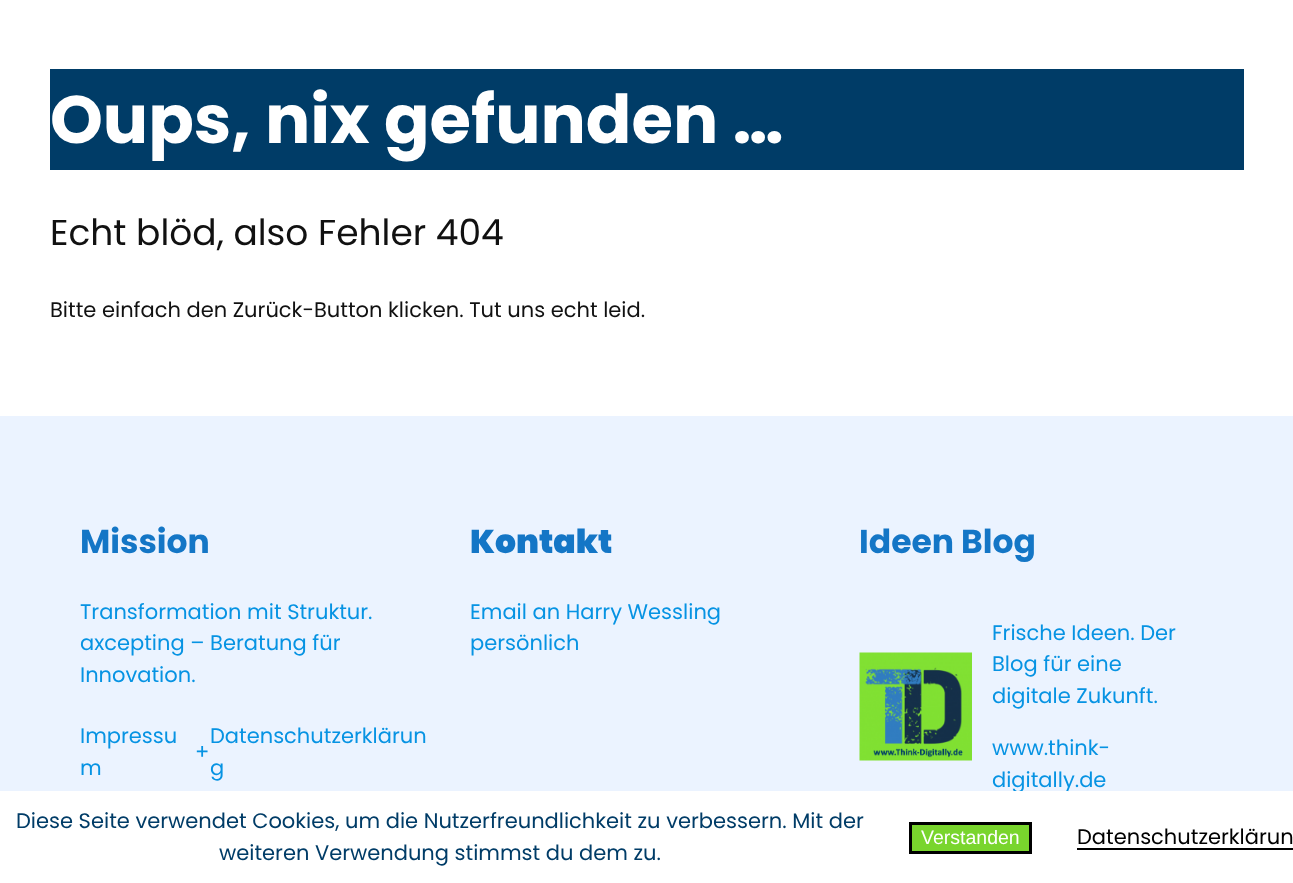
<svg xmlns="http://www.w3.org/2000/svg" width="1293" height="883" viewBox="0 0 1293 883">
  <style>
    .t1 { font: bold 67.25px Poppins; fill: #fff; }
    .t2 { font: 36px Poppins; fill: #111; }
    .t3 { font: 21px Poppins; fill: #111; }
    .t4 { font: bold 33px Poppins; fill: #1476c6; }
    .t5 { font: 21px Poppins; fill: #0693e3; }
    .t6 { font: 900 33px Poppins; fill: #1476c6; }
    .t7 { font: 21px Poppins; fill: #003c67; }
    .t8 { font: 19.5px Liberation Sans; fill: #fff; }
    .t9 { font: 21px Poppins; fill: #000; }
  </style>
  <rect width="100%" height="100%" fill="#fff"/>
  <rect x="50" y="69" width="1194" height="101" fill="#003c67"/>
  <text x="50" y="143" class="t1">Oups, nix gefunden …</text>
  <text x="50" y="245" class="t2">Echt blöd, also Fehler 404</text>
  <text x="50" y="317" class="t3">Bitte einfach den Zurück-Button klicken. Tut uns echt leid.</text>
  <rect x="0" y="416" width="1293" height="375" fill="#ebf3ff"/>
  <text x="80" y="553" class="t4">Mission</text>
  <text x="80" y="619" class="t5">Transformation mit Struktur.</text>
  <text x="80" y="650" class="t5">axcepting – Beratung für</text>
  <text x="80" y="682" class="t5">Innovation.</text>
  <text x="80" y="743" class="t5">Impressu</text>
  <text x="80" y="775" class="t5">m</text>
  <text x="195" y="759" class="t5">+</text>
  <text x="210" y="743" class="t5">Datenschutzerklärun</text>
  <text x="210" y="775" class="t5">g</text>
  <text x="470" y="553" class="t6">Kontakt</text>
  <text x="470" y="619" class="t5">Email an Harry Wessling</text>
  <text x="470" y="650" class="t5">persönlich</text>
  <text x="859" y="553" class="t4">Ideen Blog</text>
  <image x="859" y="652" width="113" height="109" href="images/1.png"/>
  <text x="992" y="640" class="t5">Frische Ideen. Der</text>
  <text x="992" y="671" class="t5">Blog für eine</text>
  <text x="992" y="703" class="t5">digitale Zukunft.</text>
  <text x="992" y="755" class="t5">www.think-</text>
  <text x="992" y="787" class="t5">digitally.de</text>
  <rect x="1013" y="791" width="55" height="2" fill="#fff"/>
  <text x="16" y="828" class="t7">Diese Seite verwendet Cookies, um die Nutzerfreundlichkeit zu verbessern. Mit der</text>
  <text x="219" y="860" class="t7">weiteren Verwendung stimmst du dem zu.</text>
  <rect x="910.5" y="823.5" width="120" height="29" fill="#79d52d" stroke="#000" stroke-width="3"/>
  <text x="921" y="844" class="t8">Verstanden</text>
  <text x="1077" y="844" class="t9">Datenschutzerklärun</text>
  <rect x="1077" y="848" width="216" height="2" fill="#000"/>
</svg>
